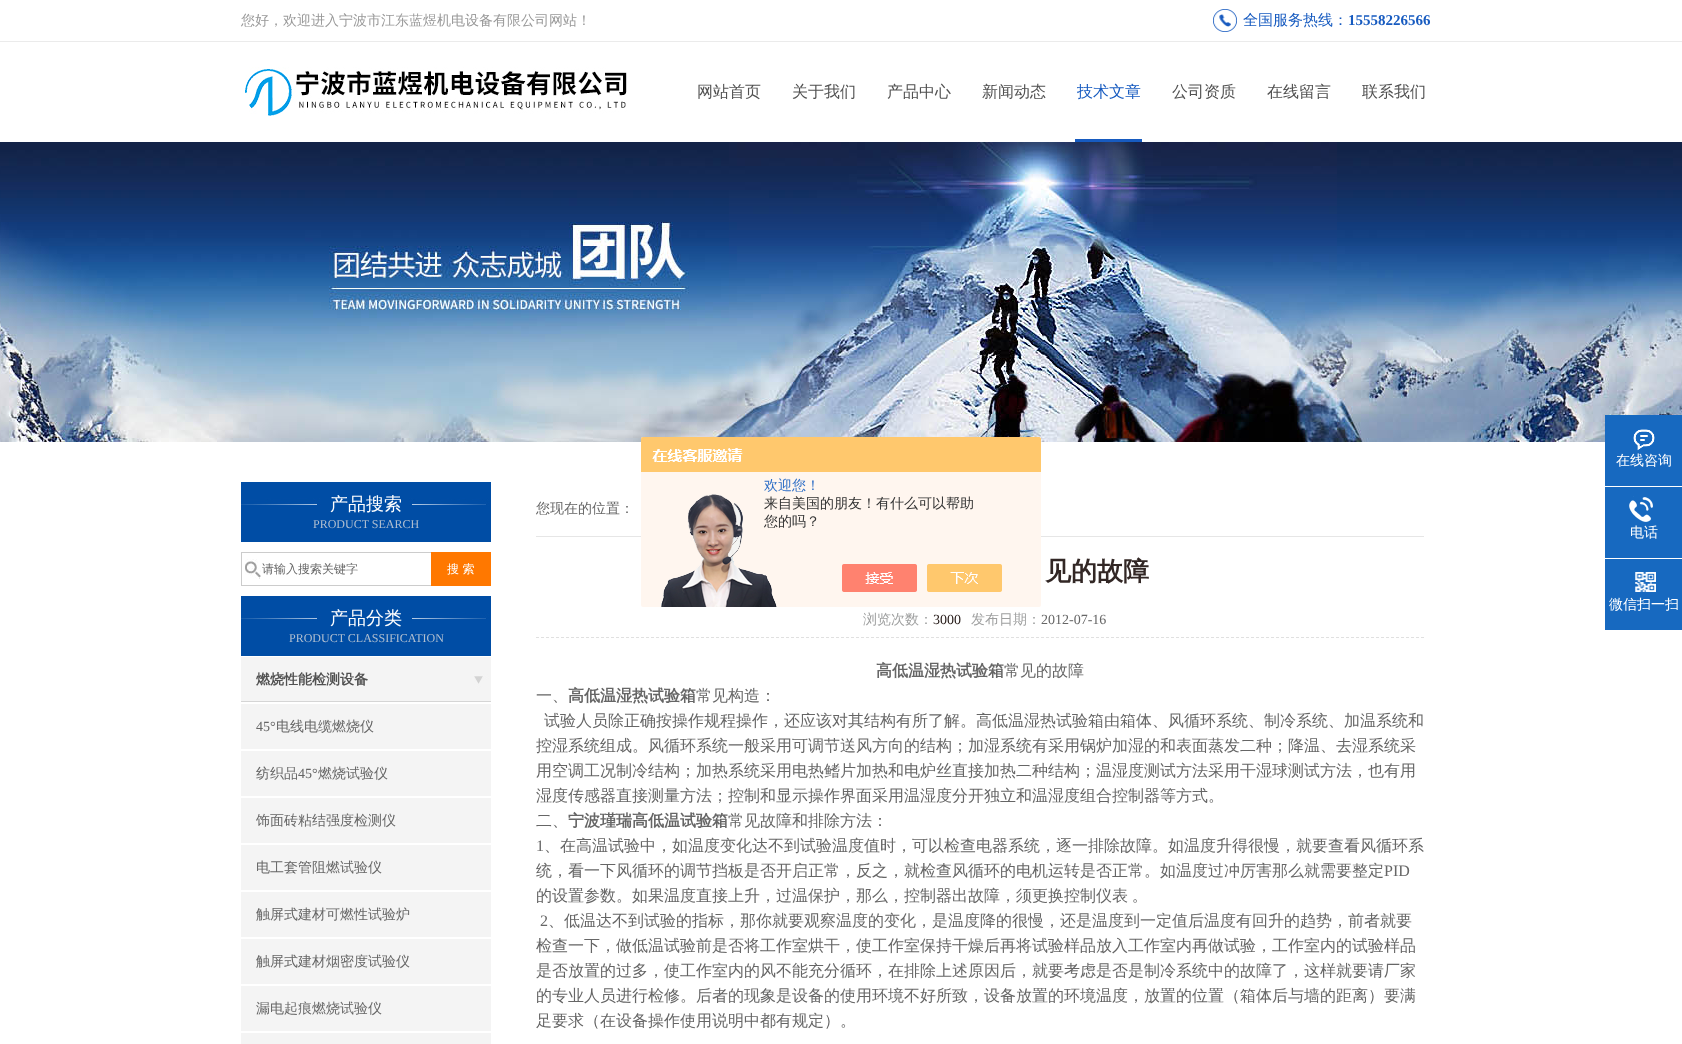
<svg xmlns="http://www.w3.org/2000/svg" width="1682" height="1044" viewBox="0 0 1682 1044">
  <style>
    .t1 { font: 500 14px WenQuanYi Zen Hei; fill: #999; }
    .t2 { font: 500 15px WenQuanYi Zen Hei; fill: #175bc0; }
    .t3 { font: bold 15px Liberation Serif; fill: #175bc0; }
    .t4 { font: 500 16px WenQuanYi Zen Hei; fill: #515151; }
    .t5 { font: 500 16px WenQuanYi Zen Hei; fill: #175bc0; }
    .t6 { font: 500 14px WenQuanYi Zen Hei; fill: #2e6ec6; }
    .t7 { font: 500 14px WenQuanYi Zen Hei; fill: #333; }
    .t8 { font: 500 14px WenQuanYi Zen Hei; fill: #fff; }
    .t9 { font: 500 18px WenQuanYi Zen Hei; fill: #fff; }
    .t10 { font: 12px Liberation Serif; fill: #b0bfd0; }
    .t11 { font: 500 12px WenQuanYi Zen Hei; fill: #666; }
    .t12 { font: 500 12px WenQuanYi Zen Hei; fill: #fff; }
    .t13 { font: bold 14px WenQuanYi Zen Hei; fill: #515151; }
    .t14 { font: 14px Liberation Serif; fill: #666; }
    .t15 { font: 500 14px WenQuanYi Zen Hei; fill: #666; }
    .t16 { font: bold 26px WenQuanYi Zen Hei; fill: #322725; }
    .t17 { font: 500 14px WenQuanYi Zen Hei; fill: #9fa0a0; }
    .t18 { font: 14px Liberation Serif; fill: #231815; }
    .t19 { font: bold 16px WenQuanYi Zen Hei; fill: #666; }
    .t20 { font: 500 16px WenQuanYi Zen Hei; fill: #666; }
    .t21 { font: 16px Liberation Serif; fill: #666; }
  </style>
  <rect width="100%" height="100%" fill="#fff"/>
  <rect x="0" y="41" width="1682" height="1" fill="#ebebeb"/>
  <text x="241" y="25" class="t1">您好，欢迎进入宁波市江东蓝煜机电设备有限公司网站！</text>
  <image x="1213" y="9" width="24" height="23" href="images/1.png"/>
  <text x="1243" y="25" class="t2">全国服务热线：</text>
  <text x="1348" y="25" class="t3">15558226566</text>
  <image x="245" y="67" width="382" height="49" href="images/2.png"/>
  <text x="697" y="97" class="t4">网站首页</text>
  <text x="792" y="97" class="t4">关于我们</text>
  <text x="887" y="97" class="t4">产品中心</text>
  <text x="982" y="97" class="t4">新闻动态</text>
  <text x="1077" y="97" class="t5">技术文章</text>
  <rect x="1075" y="139" width="67" height="3" fill="#175bc0"/>
  <text x="1172" y="97" class="t4">公司资质</text>
  <text x="1267" y="97" class="t4">在线留言</text>
  <text x="1362" y="97" class="t4">联系我们</text>
  <image x="0" y="142" width="1682" height="300" href="images/3.png"/>
  <rect x="536" y="536" width="888" height="1" fill="#e6e6e6"/>
  <image x="641" y="437" width="400" height="170" href="images/4.png"/>
  <text x="764" y="490" class="t6">欢迎您！</text>
  <text x="764" y="508" class="t7">来自美国的朋友！有什么可以帮助</text>
  <text x="764" y="526" class="t7">您的吗？</text>
  <rect x="1605" y="415" width="77" height="71" fill="#1769c0"/>
  <image x="1633" y="429" width="22" height="22" href="images/5.png"/>
  <text x="1616" y="465" class="t8">在线咨询</text>
  <rect x="1605" y="487" width="77" height="71" fill="#1769c0"/>
  <image x="1629" y="496" width="24" height="26" href="images/6.png"/>
  <text x="1630" y="537" class="t8">电话</text>
  <rect x="1605" y="559" width="77" height="71" fill="#1769c0"/>
  <image x="1635" y="572" width="21" height="20" href="images/7.png"/>
  <text x="1609" y="609" class="t8">微信扫一扫</text>
  <image x="241" y="482" width="250" height="60" href="images/8.png"/>
  <text x="330" y="510" class="t9">产品搜索</text>
  <text x="313" y="528" class="t10">PRODUCT SEARCH</text>
  <image x="245" y="559" width="16" height="20" href="images/9.png"/>
  <rect x="241" y="552" width="190" height="1" fill="#ccc"/>
  <rect x="241" y="585" width="190" height="1" fill="#ccc"/>
  <rect x="241" y="552" width="1" height="34" fill="#ccc"/>
  <text x="262" y="573" class="t11">请输入搜索关键字</text>
  <rect x="431" y="552" width="60" height="34" fill="#ff7800"/>
  <text x="447" y="573" class="t12">搜 索</text>
  <image x="241" y="596" width="250" height="60" href="images/8.png"/>
  <text x="330" y="624" class="t9">产品分类</text>
  <text x="289" y="642" class="t10">PRODUCT CLASSIFICATION</text>
  <image x="241" y="657" width="250" height="45" href="images/10.png"/>
  <text x="256" y="684" class="t13">燃烧性能检测设备</text>
  <rect x="241" y="704" width="250" height="45" fill="#f4f4f4"/>
  <text x="256" y="731" class="t14">45°</text>
  <text x="276" y="731" class="t15">电线电缆燃烧仪</text>
  <rect x="241" y="751" width="250" height="45" fill="#f4f4f4"/>
  <text x="256" y="778" class="t15">纺织品</text>
  <text x="298" y="778" class="t14">45°</text>
  <text x="318" y="778" class="t15">燃烧试验仪</text>
  <rect x="241" y="798" width="250" height="45" fill="#f4f4f4"/>
  <text x="256" y="825" class="t15">饰面砖粘结强度检测仪</text>
  <rect x="241" y="845" width="250" height="45" fill="#f4f4f4"/>
  <text x="256" y="872" class="t15">电工套管阻燃试验仪</text>
  <rect x="241" y="892" width="250" height="45" fill="#f4f4f4"/>
  <text x="256" y="919" class="t15">触屏式建材可燃性试验炉</text>
  <rect x="241" y="939" width="250" height="45" fill="#f4f4f4"/>
  <text x="256" y="966" class="t15">触屏式建材烟密度试验仪</text>
  <rect x="241" y="986" width="250" height="45" fill="#f4f4f4"/>
  <text x="256" y="1013" class="t15">漏电起痕燃烧试验仪</text>
  <rect x="241" y="1033" width="250" height="11" fill="#f4f4f4"/>
  <text x="536" y="513" class="t15">您现在的位置：</text>
  <text x="1045" y="580" class="t16">见的故障</text>
  <path d="M536 637.5H1424" fill="none" stroke="#e0e0e0" stroke-dasharray="3 2"/>
  <text x="863" y="624" class="t17">浏览次数：</text>
  <text x="933" y="624" class="t18">3000</text>
  <text x="971" y="624" class="t17">发布日期：</text>
  <text x="1041" y="624" class="t14">2012-07-16</text>
  <text x="876" y="676" class="t19">高低温湿热试验箱</text>
  <text x="1004" y="676" class="t20">常见的故障</text>
  <text x="536" y="701" class="t20">一、</text>
  <text x="568" y="701" class="t19">高低温湿热试验箱</text>
  <text x="696" y="701" class="t20">常见构造：</text>
  <text x="544" y="726" class="t20">试验人员除正确按操作规程操作，还应该对其结构有所了解。高低温湿热试验箱由箱体、风循环系统、制冷系统、加温系统和</text>
  <text x="536" y="751" class="t20">控湿系统组成。风循环系统一般采用可调节送风方向的结构；加湿系统有采用锅炉加湿的和表面蒸发二种；降温、去湿系统采</text>
  <text x="536" y="776" class="t20">用空调工况制冷结构；加热系统采用电热鳍片加热和电炉丝直接加热二种结构；温湿度测试方法采用干湿球测试方法，也有用</text>
  <text x="536" y="801" class="t20">湿度传感器直接测量方法；控制和显示操作界面采用温湿度分开独立和温湿度组合控制器等方式。</text>
  <text x="536" y="826" class="t20">二、</text>
  <text x="568" y="826" class="t19">宁波瑾瑞高低温试验箱</text>
  <text x="728" y="826" class="t20">常见故障和排除方法：</text>
  <text x="536" y="851" class="t21">1</text>
  <text x="544" y="851" class="t20">、在高温试验中，如温度变化达不到试验温度值时，可以检查电器系统，逐一排除故障。如温度升得很慢，就要查看风循环系</text>
  <text x="536" y="876" class="t20">统，看一下风循环的调节挡板是否开启正常，反之，就检查风循环的电机运转是否正常。如温度过冲厉害那么就需要整定</text>
  <text x="1384" y="876" class="t21">PID</text>
  <text x="536" y="901" word-spacing="-1" class="t20">的设置参数。如果温度直接上升，过温保护，那么，控制器出故障，须更换控制仪表 。</text>
  <text x="540" y="926" class="t21">2</text>
  <text x="548" y="926" class="t20">、低温达不到试验的指标，那你就要观察温度的变化，是温度降的很慢，还是温度到一定值后温度有回升的趋势，前者就要</text>
  <text x="536" y="951" class="t20">检查一下，做低温试验前是否将工作室烘干，使工作室保持干燥后再将试验样品放入工作室内再做试验，工作室内的试验样品</text>
  <text x="536" y="976" class="t20">是否放置的过多，使工作室内的风不能充分循环，在排除上述原因后，就要考虑是否是制冷系统中的故障了，这样就要请厂家</text>
  <text x="536" y="1001" class="t20">的专业人员进行检修。后者的现象是设备的使用环境不好所致，设备放置的环境温度，放置的位置（箱体后与墙的距离）要满</text>
  <text x="536" y="1026" class="t20">足要求（在设备操作使用说明中都有规定）。</text>
</svg>
